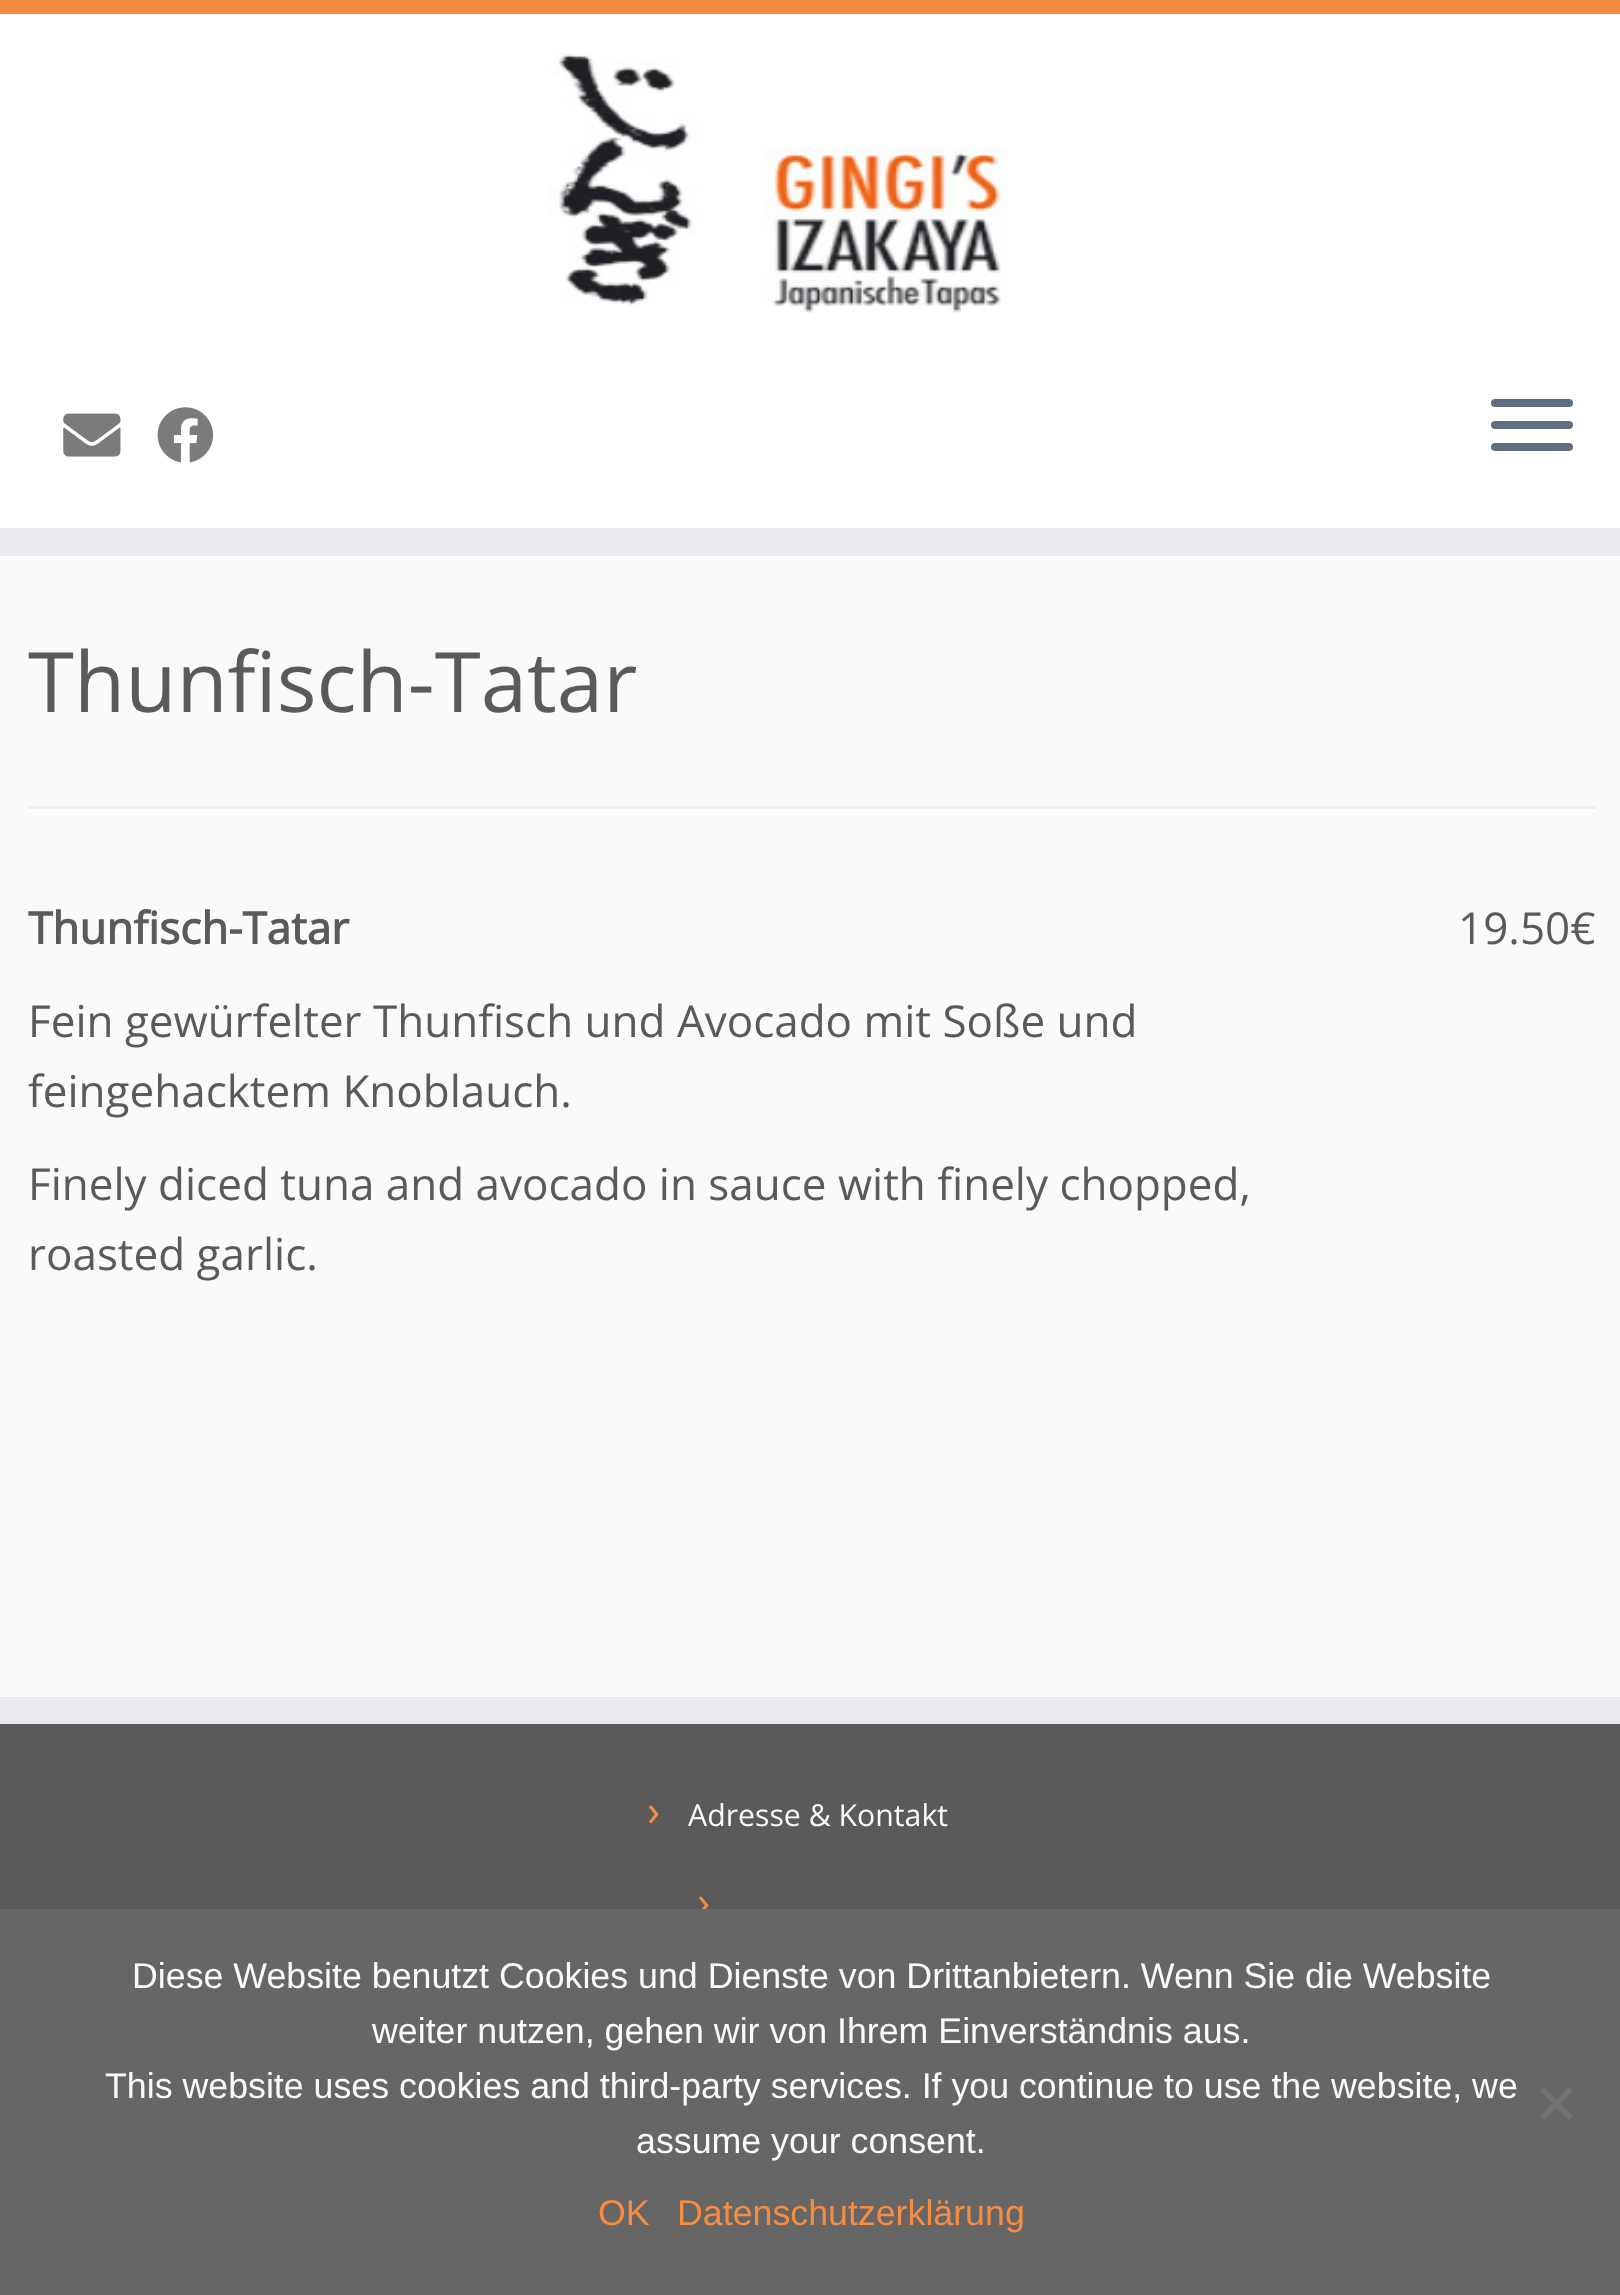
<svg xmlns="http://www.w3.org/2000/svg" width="1620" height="2295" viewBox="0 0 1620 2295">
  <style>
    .t1 { font: 83.5px Open Sans; fill: #5a5a5a; }
    .t2 { font: bold 44px Open Sans; fill: #5a5a5a; }
    .t3 { font: 44px Open Sans; fill: #5a5a5a; }
    .t4 { font: 44px Open Sans; fill: #f78c40; }
    .t5 { font: 30.25px Open Sans; fill: #fafafa; }
    .t6 { font: 35.75px Liberation Sans; fill: #fafafa; }
    .t7 { font: 35.75px Liberation Sans; fill: #f78c40; }
  </style>
  <rect width="100%" height="100%" fill="#fafafa"/>
  <rect x="0" y="14" width="1620" height="514" fill="#fff"/>
  <rect x="0" y="0" width="1620" height="14" fill="#f78c40"/>
  <rect x="0" y="528" width="1620" height="28" fill="#e9eaee"/>
  <image x="548" y="53" width="459" height="260" href="images/1.png"/>
  <image x="63" y="413" width="58" height="44" href="images/2.png"/>
  <image x="157" y="407" width="57" height="56" href="images/3.png"/>
  <rect x="1491" y="399" width="82" height="8" rx="4" fill="#5f6f81"/>
  <rect x="1491" y="421" width="82" height="8" rx="4" fill="#5f6f81"/>
  <rect x="1491" y="443" width="82" height="8" rx="4" fill="#5f6f81"/>
  <text x="28" y="712" class="t1">Thunfisch-Tatar</text>
  <rect x="28" y="806" width="1567" height="3" fill="#eee"/>
  <rect x="28" y="809" width="1567" height="3" fill="#fff"/>
  <text x="28" y="944" class="t2">Thunfisch-Tatar</text>
  <text x="1458" y="944" class="t3">19.50€</text>
  <text x="28" y="1037" class="t3">Fein gewürfelter Thunfisch und Avocado mit Soße und</text>
  <text x="28" y="1107" class="t3">feingehacktem Knoblauch.</text>
  <text x="28" y="1200" class="t3">Finely diced tuna and avocado in sauce with finely chopped,</text>
  <text x="28" y="1270" class="t3">roasted garlic.</text>
  <rect x="0" y="1724" width="1620" height="185" fill="#5a5a5a"/>
  <rect x="0" y="1697" width="1620" height="27" fill="#e9eaee"/>
  <text x="647" y="1826" class="t4">›</text>
  <text x="688" y="1826" class="t5">Adresse &amp; Kontakt</text>
  <text x="697" y="1917" class="t4">›</text>
  <rect x="0" y="1909" width="1620" height="386" fill="#666"/>
  <text x="132" y="1988" class="t6">Diese Website benutzt Cookies und Dienste von Drittanbietern. Wenn Sie die Website</text>
  <text x="372" y="2043" class="t6">weiter nutzen, gehen wir von Ihrem Einverständnis aus.</text>
  <text x="105" y="2098" class="t6">This website uses cookies and third-party services. If you continue to use the website, we</text>
  <text x="636" y="2153" class="t6">assume your consent.</text>
  <path d="M1569 2087L1573 2091L1544 2120.5L1540 2116.5Z" fill="#737373"/>
  <path d="M1540 2091L1544 2087L1573 2116.5L1569 2120.5Z" fill="#737373"/>
  <text x="598" y="2225" class="t7">OK</text>
  <text x="677" y="2225" class="t7">Datenschutzerklärung</text>
</svg>
